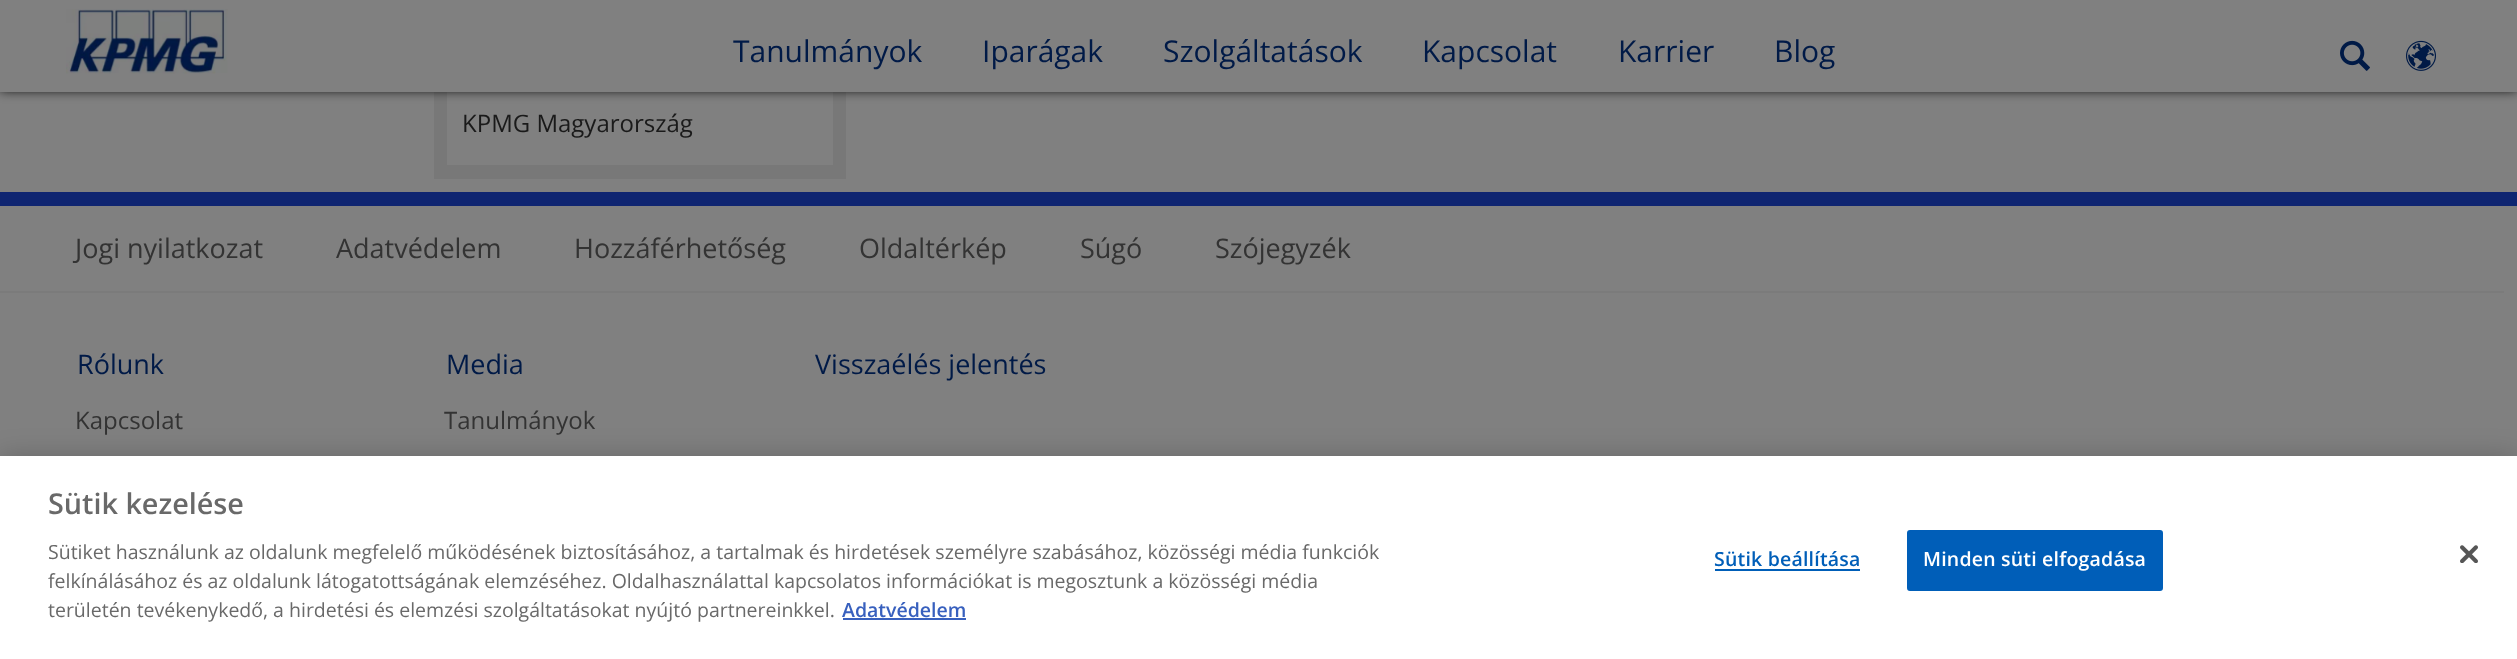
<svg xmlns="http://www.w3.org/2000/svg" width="2517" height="659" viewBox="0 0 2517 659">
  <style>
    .t1 { font: 30px Open Sans; fill: #001a47; }
    .t2 { font: 24px Open Sans; fill: #1a1a1a; }
    .t3 { font: 27px Open Sans; fill: #333; }
    .t4 { font: 27px Open Sans; fill: #001a47; }
    .t5 { font: 24px Open Sans; fill: #333; }
    .t6 { font: 600 28.75px Open Sans; fill: #696969; }
    .t7 { font: 19.5px Open Sans; fill: #696969; }
    .t8 { font: 600 19.5px Open Sans; fill: #3860be; }
    .t9 { font: 600 19.5px Open Sans; letter-spacing: 0.2px; fill: #005eb8; }
    .t10 { font: 600 19.5px Open Sans; letter-spacing: 0.2px; fill: #fff; }
  </style>
  <rect width="100%" height="100%" fill="#808080"/>
  <rect x="434" y="92" width="412" height="87" fill="#787878"/>
  <rect x="447" y="92" width="386" height="73" fill="#808080"/>
  <rect x="0" y="-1" width="2517" height="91" fill="#000" filter="blur(6px)"/>
  <rect x="0" y="0" width="2517" height="92" fill="#808080"/>
  <image x="66" y="9" width="162" height="65" href="images/1.png"/>
  <text x="733" y="62" class="t1">Tanulmányok</text>
  <text x="982" y="62" class="t1">Iparágak</text>
  <text x="1163" y="62" class="t1">Szolgáltatások</text>
  <text x="1422" y="62" class="t1">Kapcsolat</text>
  <text x="1618" y="62" class="t1">Karrier</text>
  <text x="1774" y="62" class="t1">Blog</text>
  <image x="2340" y="40" width="30" height="31" href="images/2.png"/>
  <image x="2406" y="40" width="30" height="31" href="images/3.png"/>
  <text x="462" y="132" class="t2">KPMG Magyarország</text>
  <rect x="0" y="192" width="2517" height="14" fill="#0f2571"/>
  <rect x="0" y="291" width="2504" height="2" fill="#7b7b7b"/>
  <text x="75" y="258" class="t3">Jogi nyilatkozat</text>
  <text x="336" y="258" class="t3">Adatvédelem</text>
  <text x="574" y="258" class="t3">Hozzáférhetőség</text>
  <text x="859" y="258" class="t3">Oldaltérkép</text>
  <text x="1080" y="258" class="t3">Súgó</text>
  <text x="1215" y="258" class="t3">Szójegyzék</text>
  <text x="77" y="374" class="t4">Rólunk</text>
  <text x="75" y="429" class="t5">Kapcsolat</text>
  <text x="446" y="374" class="t4">Media</text>
  <text x="444" y="429" class="t5">Tanulmányok</text>
  <text x="815" y="374" class="t4">Visszaélés jelentés</text>
  <rect x="0" y="456" width="2517" height="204" fill="#00000033" filter="blur(13.5px)"/>
  <rect x="0" y="456" width="2517" height="203" fill="#fff"/>
  <text x="48" y="514" class="t6">Sütik kezelése</text>
  <text x="48" y="559" class="t7">Sütiket használunk az oldalunk megfelelő működésének biztosításához, a tartalmak és hirdetések személyre szabásához, közösségi média funkciók</text>
  <text x="48" y="588" class="t7">felkínálásához és az oldalunk látogatottságának elemzéséhez. Oldalhasználattal kapcsolatos információkat is megosztunk a közösségi média</text>
  <text x="48" y="617" class="t7">területén tevékenykedő, a hirdetési és elemzési szolgáltatásokat nyújtó partnereinkkel.</text>
  <text x="842" y="617" class="t8">Adatvédelem</text>
  <rect x="843" y="618" width="123" height="2" fill="#3860be"/>
  <text x="1714" y="566" class="t9">Sütik beállítása</text>
  <rect x="1715" y="569" width="145" height="2" fill="#005eb8"/>
  <rect x="1908" y="531" width="254" height="59" rx="2" fill="#005eb8" stroke="#005eb8" stroke-width="2"/>
  <text x="1923" y="566" class="t10">Minden süti elfogadása</text>
  <image x="2460" y="545" width="18" height="18" href="images/4.png"/>
</svg>
